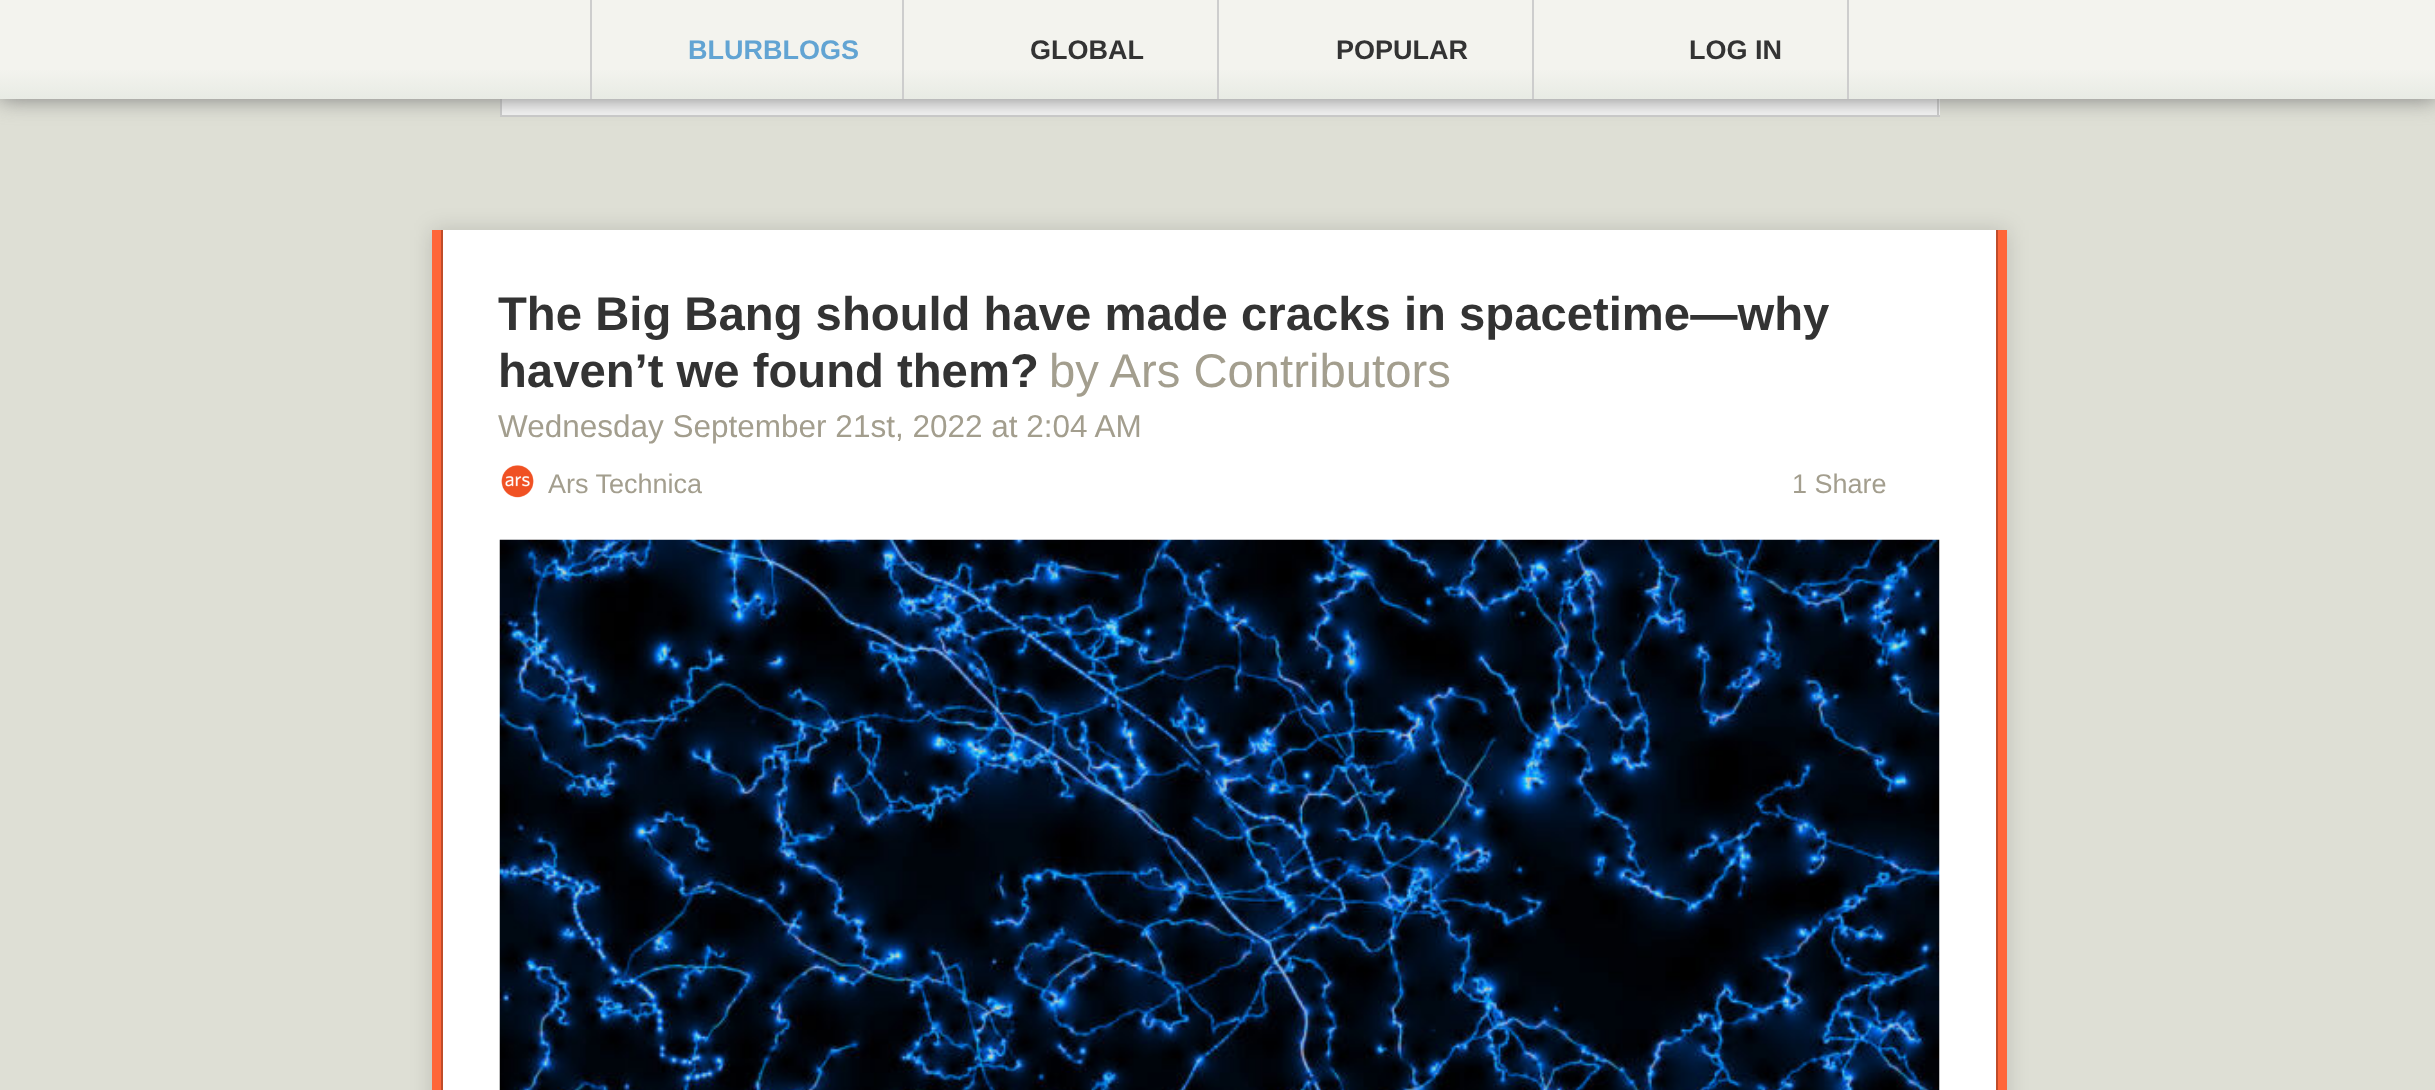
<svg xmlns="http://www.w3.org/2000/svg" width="2435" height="1090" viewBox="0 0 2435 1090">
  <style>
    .t1 { font: bold 27px Liberation Sans; fill: #62a4d3; }
    .t2 { font: bold 27px Liberation Sans; fill: #333; }
    .t3 { font: bold 47.25px Liberation Sans; fill: #333; }
    .t4 { font: 47.25px Liberation Sans; fill: #a39e8e; }
    .t5 { font: 31.5px Liberation Sans; fill: #a39e8e; }
    .t6 { font: 27px Liberation Sans; fill: #a39e8e; }
  </style>
  <defs>
    <linearGradient id="g1" gradientUnits="userSpaceOnUse" x1="1218" y1="0" x2="1218" y2="99"><stop offset="0" stop-color="#f3f3ee"/><stop offset="0.7" stop-color="#f3f3ee"/><stop offset="1" stop-color="#e8ebe4"/></linearGradient>
  </defs>
  <rect width="100%" height="100%" fill="#dedfd5"/>
  <rect x="502" y="99" width="1438" height="16" fill="#f6f6f6"/>
  <rect x="1937" y="99" width="2" height="18" fill="#ccc"/>
  <rect x="500" y="115" width="1440" height="2" fill="#ccc"/>
  <rect x="500" y="99" width="2" height="18" fill="#ccc"/>
  <rect x="0" y="0" width="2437" height="99" fill="#7d7d7d" filter="blur(11px)"/>
  <rect x="0" y="0" width="2435" height="99" fill="url(#g1)"/>
  <rect x="902" y="0" width="2" height="99" fill="#cdcdcd"/>
  <rect x="590" y="0" width="2" height="99" fill="#cdcdcd"/>
  <text x="688" y="59" class="t1">BLURBLOGS</text>
  <rect x="1217" y="0" width="2" height="99" fill="#cdcdcd"/>
  <text x="1030" y="59" class="t2">GLOBAL</text>
  <rect x="1532" y="0" width="2" height="99" fill="#cdcdcd"/>
  <text x="1336" y="59" class="t2">POPULAR</text>
  <rect x="1847" y="0" width="2" height="99" fill="#cdcdcd"/>
  <text x="1689" y="59" class="t2">LOG IN</text>
  <rect x="432" y="230" width="1575" height="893" fill="#00000026" filter="blur(11px)"/>
  <rect x="443" y="230" width="1553" height="860" fill="#fff"/>
  <rect x="1998" y="230" width="9" height="860" fill="#ff6639"/>
  <rect x="432" y="230" width="9" height="860" fill="#ff6639"/>
  <rect x="1996" y="230" width="2" height="860" fill="#bf4c2a"/>
  <rect x="441" y="230" width="2" height="860" fill="#bf4c2a"/>
  <text x="498" y="330" class="t3">The Big Bang should have made cracks in spacetime—why</text>
  <text x="498" y="387" class="t3">haven’t we found them?</text>
  <text x="1049" y="387" class="t4">by Ars Contributors</text>
  <text x="498" y="437" class="t5">Wednesday September 21st, 2022 at 2:04 AM</text>
  <image x="501" y="465" width="33" height="33" href="images/1.png"/>
  <text x="548" y="493" class="t6">Ars Technica</text>
  <text x="1792" y="493" class="t6">1 Share</text>
  <image x="499" y="539" width="1441" height="551" href="images/2.png"/>
</svg>
